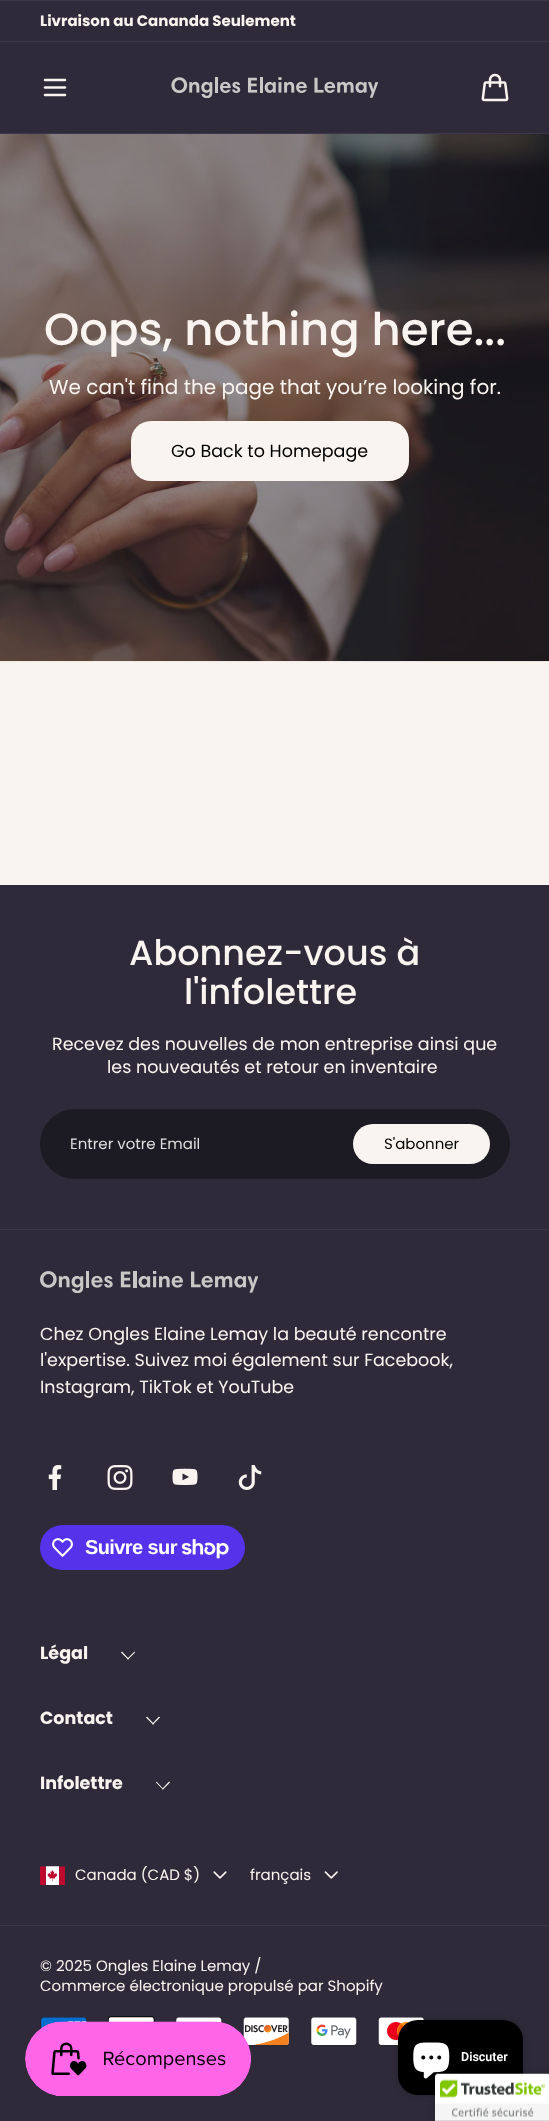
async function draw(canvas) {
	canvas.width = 549;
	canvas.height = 2121;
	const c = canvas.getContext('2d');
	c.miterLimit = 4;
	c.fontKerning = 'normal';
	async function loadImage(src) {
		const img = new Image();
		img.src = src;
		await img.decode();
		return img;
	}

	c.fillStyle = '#f9f4ef';
	c.fillRect(0, 0, 549, 2121);
	for (const [x, y, w, h, color] of [
		[0, 1, 549, 132, '#2e2a39'],
		[0, 0, 549, 1, '#3d384b'],
		[0, 41, 549, 1, '#3d384b'],
	]) {
		c.fillStyle = color;
		c.fillRect(x, y, w, h);
	}
	c.font = 'bold 15px Poppins';
	c.fillStyle = '#f9f4ef';
	c.fillText('Livraison au Cananda Seulement', 40, 26);
	c.fillStyle = '#3d384b';
	c.fillRect(0, 133, 549, 1);
	c.drawImage(await loadImage('img1.png'), 43, 78, 24, 19);
	c.drawImage(await loadImage('img2.png'), 171, 77, 207, 21);
	c.drawImage(await loadImage('img3.png'), 481, 73, 28, 29);
	c.drawImage(await loadImage('img4.png'), 0, 134, 549, 528);
	c.font = '500 45px Poppins';
	c.fillStyle = '#f9f4ef';
	c.fillText('Oops, nothing here...', 44, 345);
	c.font = '20px Poppins';
	c.fillText('We can\'t find the page that you’re looking for.', 49, 394);
	c.beginPath();
	c.roundRect(131, 421, 278, 60, 20);
	c.fill();
	c.font = '17.5px Poppins';
	c.fillStyle = '#000';
	c.fillText('Go Back to Homepage', 171, 457);
	c.fillStyle = '#2e2a39';
	c.fillRect(0, 885, 549, 344);
	c.font = '500 35px Poppins';
	c.fillStyle = '#f9f4ef';
	c.fillText('Abonnez-vous à', 129, 965);
	c.fillText('l\'infolettre', 184, 1004);
	c.font = '17.5px Poppins';
	c.fillText('Recevez des nouvelles de mon entreprise ainsi que', 52, 1050);
	c.fillText('les nouveautés et retour en inventaire', 107, 1073);
	c.fillStyle = '#1c1a23';
	c.beginPath();
	c.roundRect(40, 1109, 470, 70, 35);
	c.fill();
	c.font = '15px Poppins';
	c.fillStyle = '#dfdfdf';
	c.fillText('Entrer votre Email', 70, 1149);
	c.fillStyle = '#f9f4ef';
	c.beginPath();
	c.roundRect(353, 1124, 137, 40, 20);
	c.fill();
	c.fillStyle = '#000';
	c.fillText('S\'abonner', 384, 1149);
	c.fillStyle = '#2e2a39';
	c.fillRect(0, 1230, 549, 695);
	c.fillStyle = '#3d384b';
	c.fillRect(0, 1229, 549, 1);
	c.drawImage(await loadImage('img5.png'), 40, 1271, 218, 22);
	c.font = '17.5px Poppins';
	c.fillStyle = '#f9f4ef';
	for (const [text, x, y] of [
		['Chez Ongles Elaine Lemay la beauté rencontre', 40, 1340],
		['l\'expertise. Suivez moi également sur Facebook,', 40, 1366],
		['Instagram, TikTok et YouTube', 40, 1393],
	]) {
		c.fillText(text, x, y);
	}
	c.drawImage(await loadImage('img6.png'), 48, 1465, 14, 25);
	c.drawImage(await loadImage('img7.png'), 107, 1465, 26, 25);
	c.drawImage(await loadImage('img8.png'), 172, 1468, 26, 17);
	c.drawImage(await loadImage('img9.png'), 238, 1465, 24, 25);
	c.fillStyle = '#5433eb';
	c.beginPath();
	c.roundRect(40, 1525, 205, 45, 22.5);
	c.fill();
	c.drawImage(await loadImage('img10.png'), 52, 1538, 21, 19);
	c.letterSpacing = '-0.6px';
	c.font = 'bold 20px Liberation Sans';
	c.fillStyle = '#fff';
	c.fillText('Suivre sur', 85, 1554);
	c.drawImage(await loadImage('img11.png'), 181, 1539, 48, 20);
	c.letterSpacing = '0px';
	c.font = 'bold 17.5px Poppins';
	c.fillStyle = '#f9f4ef';
	c.fillText('Légal', 40, 1659);
	c.beginPath();
	c.moveTo(135, 1652.5);
	c.lineTo(128, 1659.5);
	c.lineTo(127, 1659);
	c.lineTo(134.5, 1651.5);
	c.closePath();
	c.fill();
	c.beginPath();
	c.moveTo(129, 1659);
	c.lineTo(128, 1659.5);
	c.lineTo(121, 1652.5);
	c.lineTo(122, 1651.5);
	c.closePath();
	c.fill();
	c.fillText('Contact', 40, 1724);
	c.beginPath();
	c.moveTo(160, 1717.5);
	c.lineTo(153, 1724.5);
	c.lineTo(152, 1724);
	c.lineTo(159, 1716.5);
	c.closePath();
	c.fill();
	c.beginPath();
	c.moveTo(154, 1724);
	c.lineTo(153, 1724.5);
	c.lineTo(146, 1717.5);
	c.lineTo(147, 1716.5);
	c.closePath();
	c.fill();
	c.fillText('Infolettre', 40, 1789);
	c.beginPath();
	c.moveTo(170, 1782.5);
	c.lineTo(163, 1789.5);
	c.lineTo(162, 1789);
	c.lineTo(169, 1781.5);
	c.closePath();
	c.fill();
	c.beginPath();
	c.moveTo(163.5, 1789);
	c.lineTo(163, 1789.5);
	c.lineTo(156, 1782.5);
	c.lineTo(156.5, 1781.5);
	c.closePath();
	c.fill();
	c.drawImage(await loadImage('img12.png'), 40, 1866, 25, 19);
	c.font = '15px Poppins';
	c.fillText('Canada (CAD $)', 75, 1880);
	c.drawImage(await loadImage('img13.png'), 213, 1871, 14, 8);
	c.fillText('français', 250, 1880);
	c.drawImage(await loadImage('img14.png'), 324, 1871, 14, 8);
	c.fillStyle = '#2e2a39';
	c.fillRect(0, 1926, 549, 195);
	c.fillStyle = '#3d384b';
	c.fillRect(0, 1925, 549, 1);
	c.fillStyle = '#f9f4ef';
	c.fillText('© 2025 Ongles Elaine Lemay /', 40, 1971);
	c.fillText('Commerce électronique propulsé par Shopify', 40, 1991);
	c.drawImage(await loadImage('img15.png'), 40, 2017, 47, 12);
	c.drawImage(await loadImage('img16.png'), 108, 2016, 47, 6);
	c.drawImage(await loadImage('img17.png'), 175, 2017, 47, 6);
	c.drawImage(await loadImage('img18.png'), 243, 2017, 47, 29);
	c.drawImage(await loadImage('img19.png'), 310, 2017, 47, 29);
	c.drawImage(await loadImage('img20.png'), 378, 2017, 47, 29);
	c.drawImage(await loadImage('img21.png'), 25, 2021, 226, 75);
	c.fillStyle = '#00000026';
	c.filter = 'blur(3px)';
	c.beginPath();
	c.roundRect(398, 2020, 125, 75, 20);
	c.fill();
	c.filter = 'none';
	c.fillStyle = '#000';
	c.beginPath();
	c.roundRect(398, 2020, 125, 75, 20);
	c.fill();
	c.drawImage(await loadImage('img22.png'), 413, 2042, 37, 37);
	c.font = '600 12.5px Roboto';
	c.fillStyle = '#fff';
	c.fillText('Discuter', 461, 2061);
	c.fillStyle = '#00000033';
	c.filter = 'blur(3px)';
	c.beginPath();
	c.roundRect(435, 2074, 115, 47, 2.5);
	c.fill();
	c.filter = 'none';
	c.drawImage(await loadImage('img23.png'), 435, 2073, 114, 48);
}

draw(document.querySelector('canvas'));
